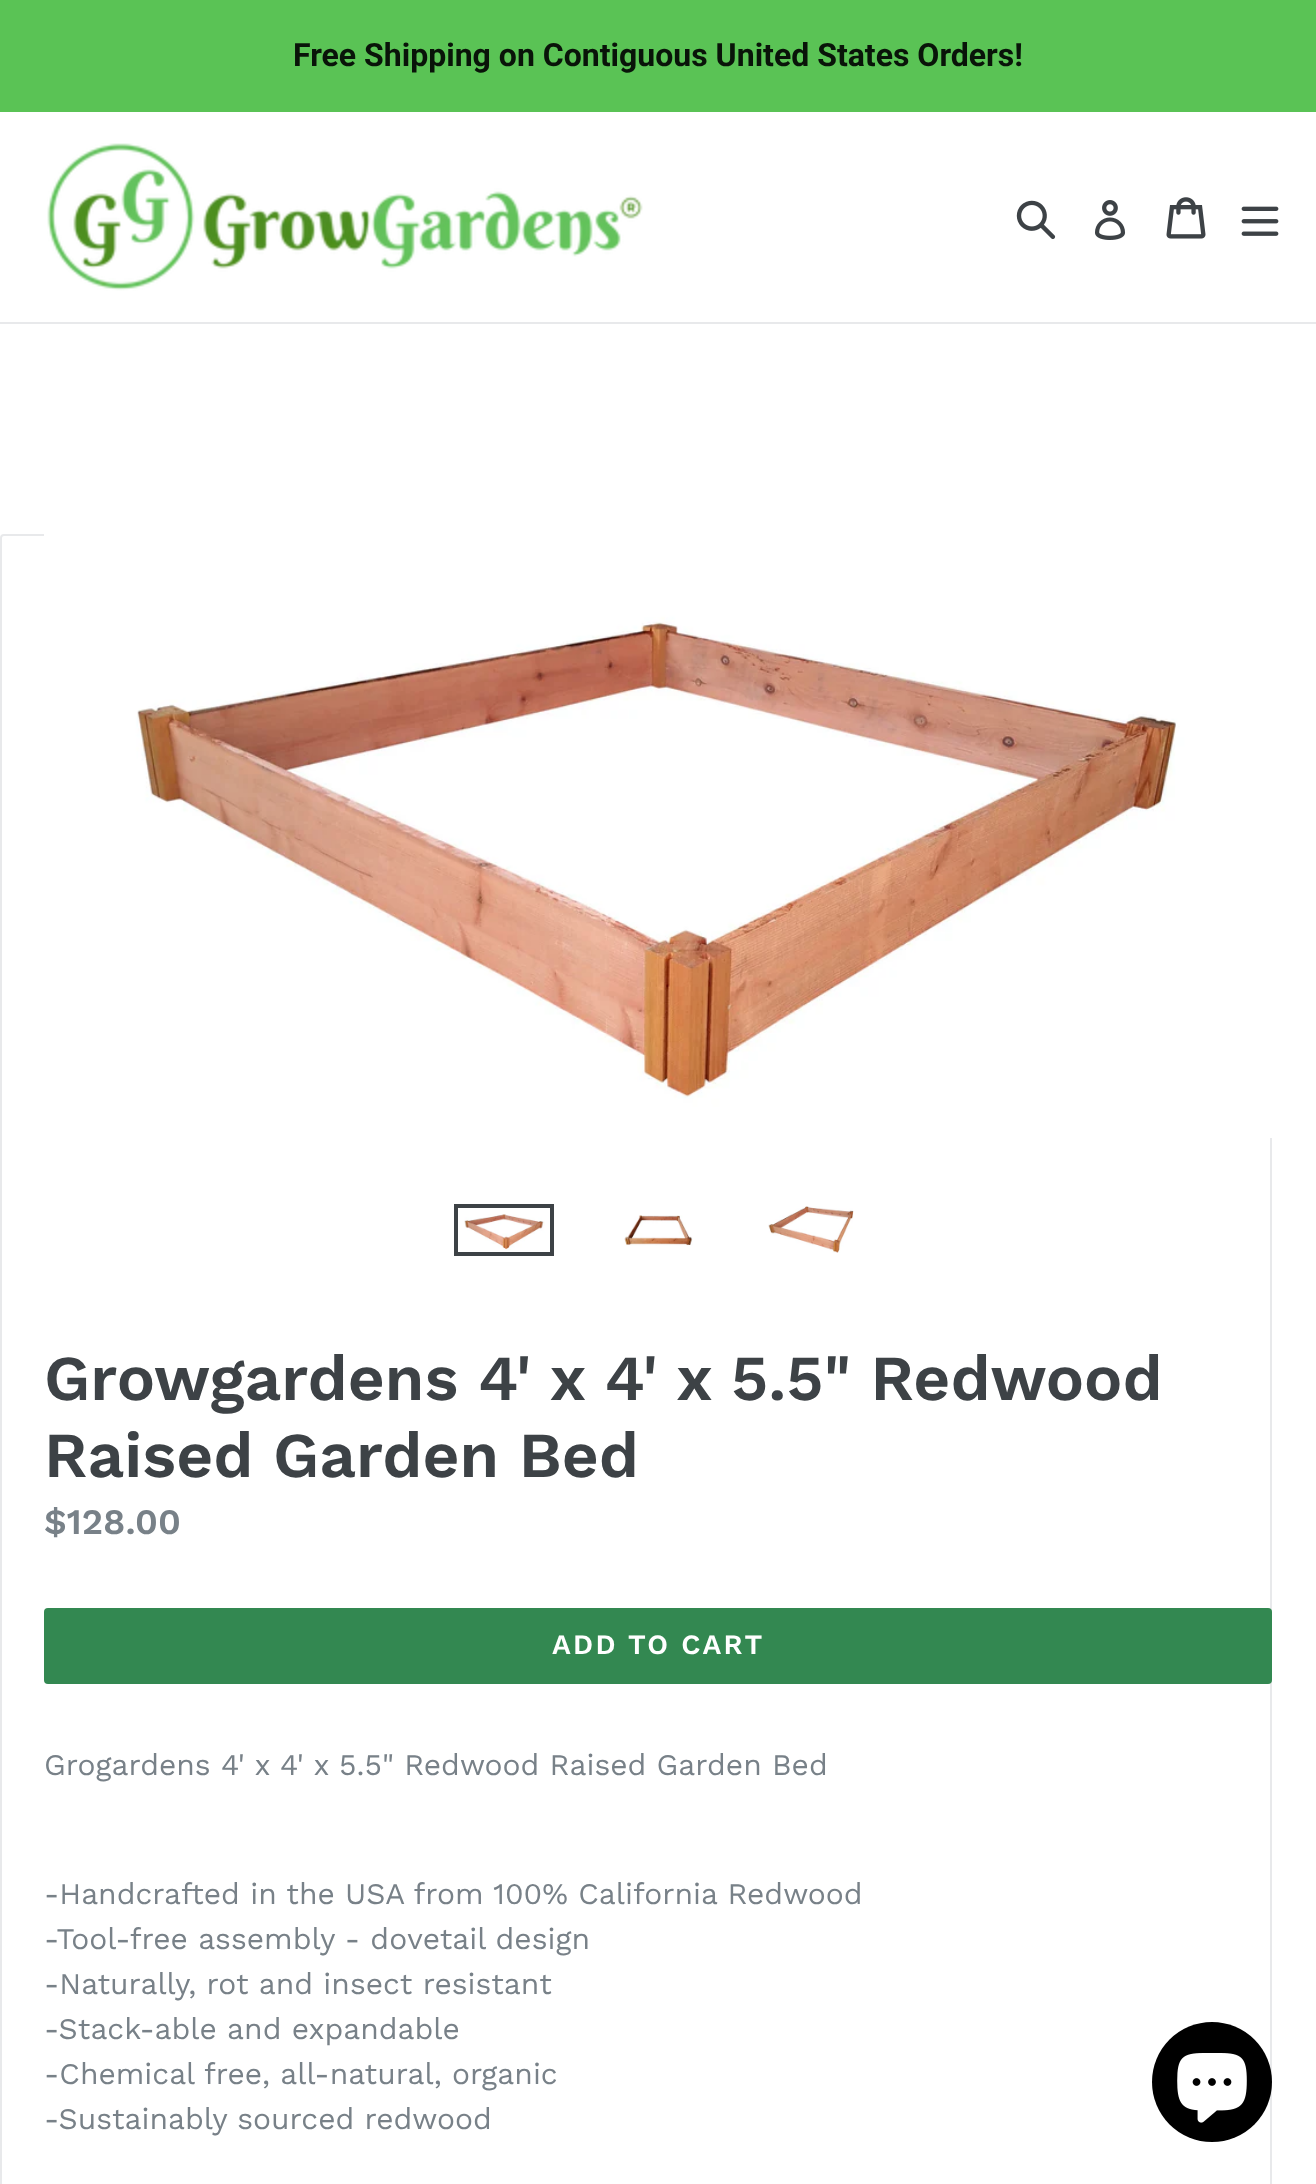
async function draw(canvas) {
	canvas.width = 1316;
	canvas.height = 2184;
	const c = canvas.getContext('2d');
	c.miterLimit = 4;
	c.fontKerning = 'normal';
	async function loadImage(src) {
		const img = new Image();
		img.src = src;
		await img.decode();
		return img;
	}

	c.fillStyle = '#fff';
	c.fillRect(0, 0, 1316, 2184);
	c.fillStyle = '#5ac355';
	c.fillRect(0, 0, 1316, 112);
	c.font = 'bold 32px Roboto';
	c.fillStyle = '#091409';
	c.fillText('Free Shipping on Contiguous United States Orders!', 293, 66);
	c.fillStyle = '#e8e9eb';
	c.fillRect(0, 322, 1316, 2);
	c.drawImage(await loadImage('img1.png'), 47, 143, 596, 148);
	c.drawImage(await loadImage('img2.png'), 1016, 200, 40, 40);
	c.drawImage(await loadImage('img3.png'), 1095, 200, 31, 40);
	c.drawImage(await loadImage('img4.png'), 1166, 197, 40, 42);
	c.drawImage(await loadImage('img5.png'), 1241, 206, 38, 30);
	c.beginPath();
	c.roundRect(1, 535, 1270, 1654, 3);
	c.strokeStyle = '#e8e9eb';
	c.lineWidth = 2;
	c.stroke();
	c.drawImage(await loadImage('img6.png'), 44, 534, 1228, 604);
	c.strokeStyle = '#3d4246';
	c.lineWidth = 4;
	c.strokeRect(456, 1206, 96, 48);
	c.drawImage(await loadImage('img7.png'), 464, 1214, 81, 36);
	c.drawImage(await loadImage('img8.png'), 624, 1215, 69, 31);
	c.drawImage(await loadImage('img9.png'), 768, 1206, 86, 47);
	c.font = '600 64px Work Sans';
	c.fillStyle = '#3d4246';
	c.fillText('Growgardens 4\' x 4\' x 5.5" Redwood', 44, 1400);
	c.fillText('Raised Garden Bed', 44, 1477);
	c.font = '600 36px Work Sans';
	c.fillStyle = '#788188';
	c.fillText('$128.00', 44, 1534);
	c.fillStyle = '#338851';
	c.beginPath();
	c.roundRect(44, 1608, 1228, 76, 4);
	c.fill();
	c.letterSpacing = '2.25px';
	c.font = '600 28px Work Sans';
	c.fillStyle = '#fff';
	c.fillText('ADD TO CART', 552, 1654);
	c.letterSpacing = '0px';
	c.font = '30px Work Sans';
	c.fillStyle = '#788188';
	for (const [text, x, y] of [
		['Grogardens 4\' x 4\' x 5.5" Redwood Raised Garden Bed', 44, 1775],
		['-Handcrafted in the USA from 100% California Redwood', 44, 1904],
		['-Tool-free assembly - dovetail design', 44, 1949],
		['-Naturally, rot and insect resistant', 44, 1994],
		['-Stack-able and expandable', 44, 2039],
		['-Chemical free, all-natural, organic', 44, 2084],
		['-Sustainably sourced redwood', 44, 2129],
	]) {
		c.fillText(text, x, y);
	}
	c.fillStyle = '#000';
	c.beginPath();
	c.arc(1212, 2082, 60, 0, 2 * Math.PI);
	c.fill();
	c.drawImage(await loadImage('img10.png'), 1177, 2053, 70, 70);
}

draw(document.querySelector('canvas'));
